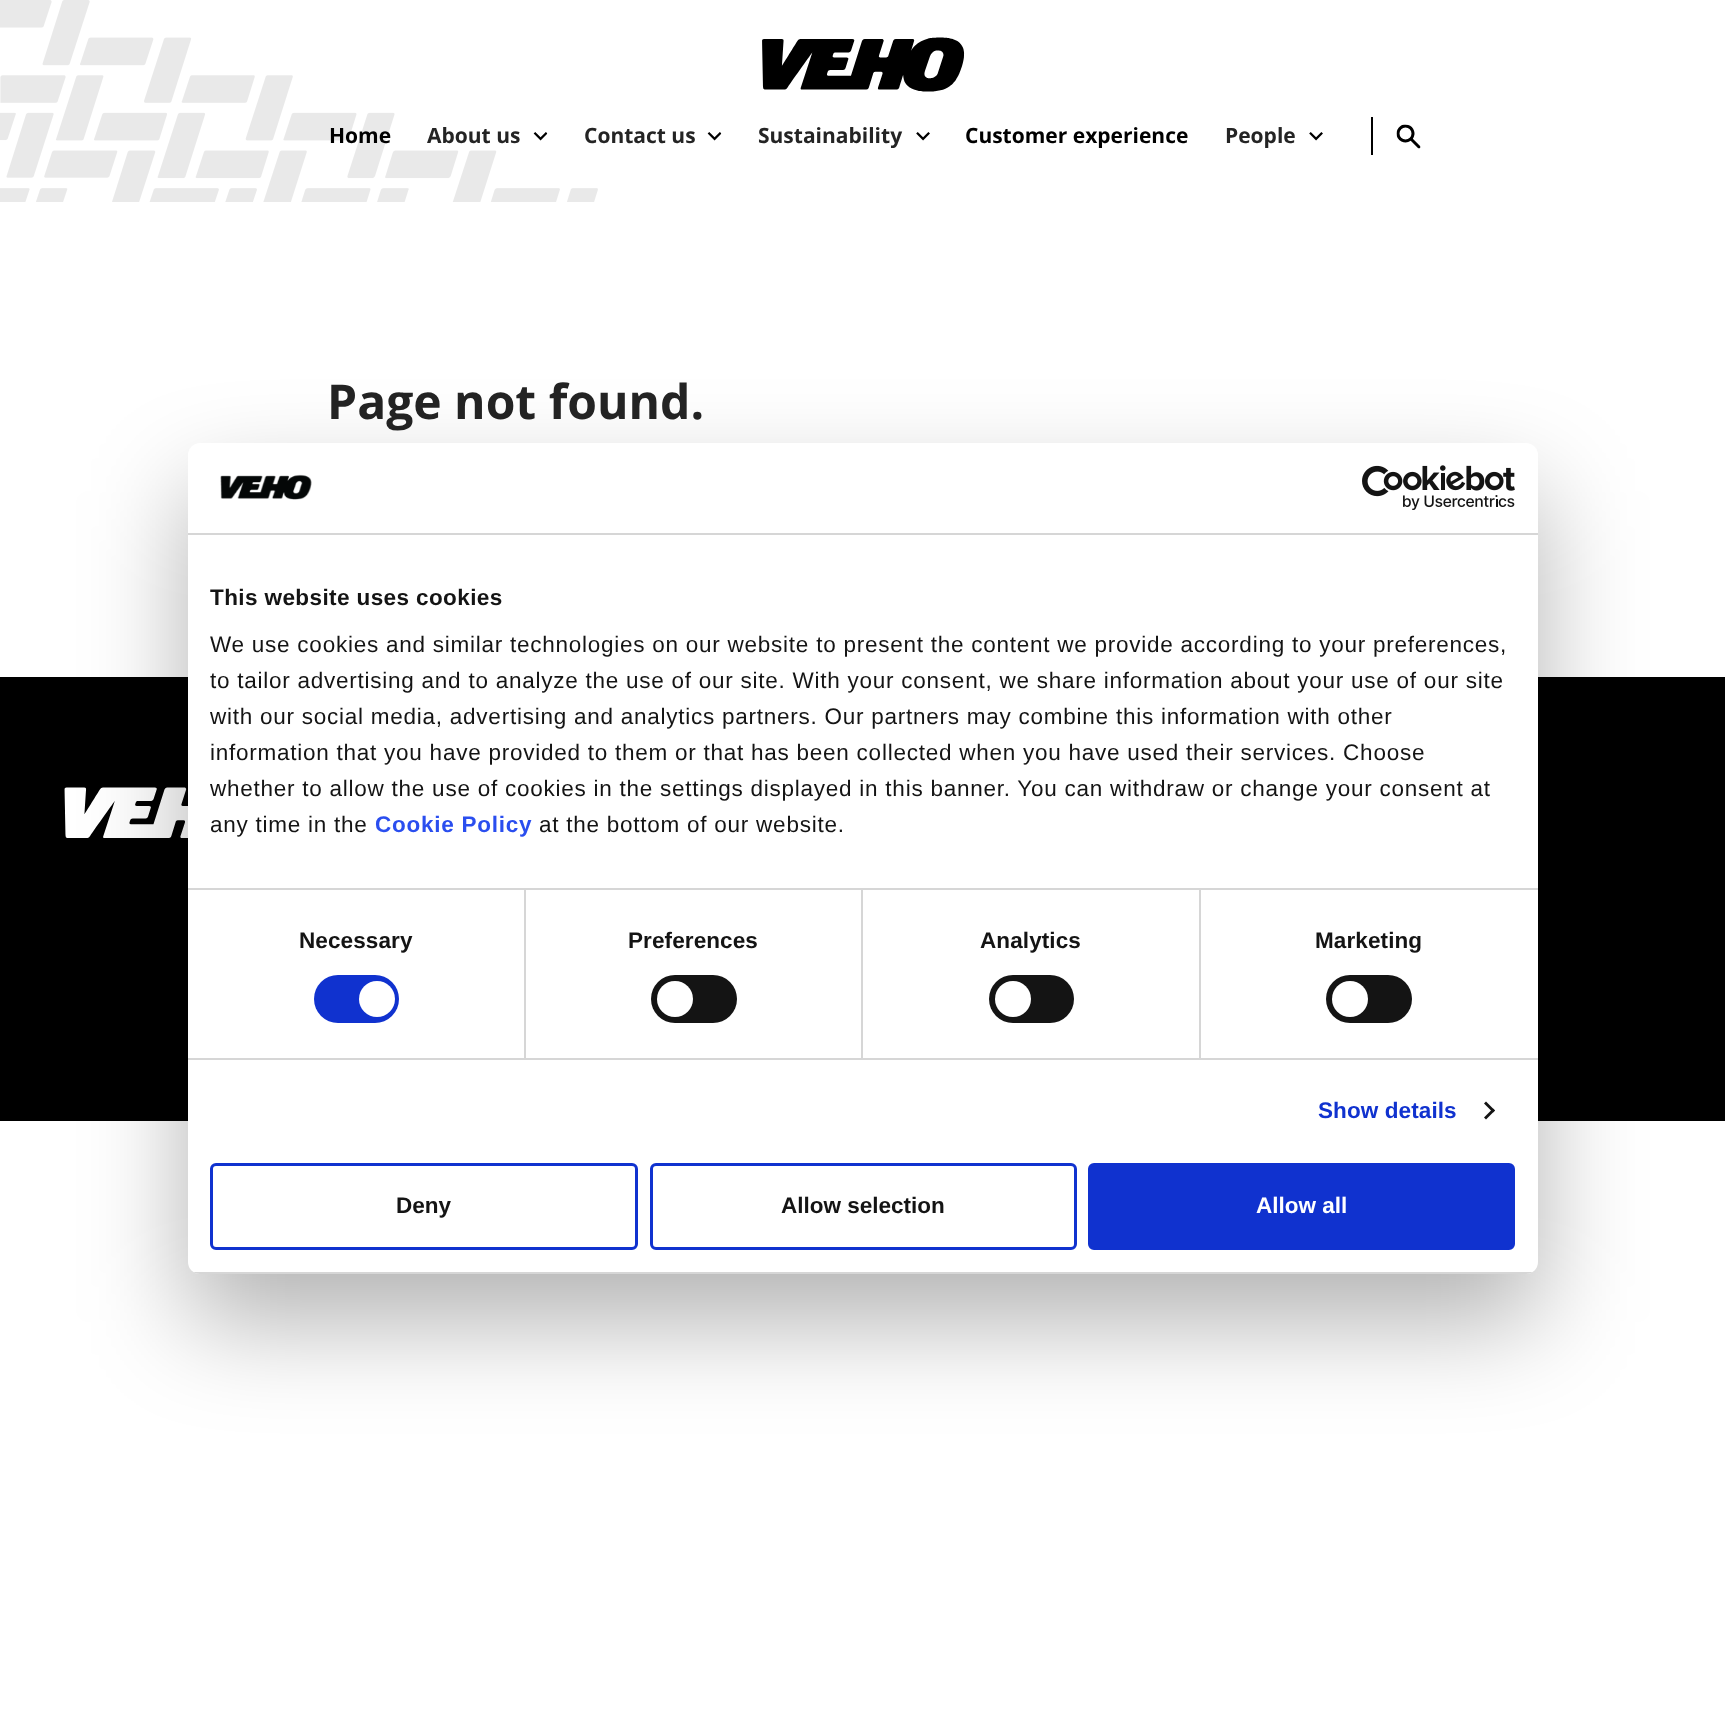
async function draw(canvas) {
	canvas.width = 1725;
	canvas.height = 1716;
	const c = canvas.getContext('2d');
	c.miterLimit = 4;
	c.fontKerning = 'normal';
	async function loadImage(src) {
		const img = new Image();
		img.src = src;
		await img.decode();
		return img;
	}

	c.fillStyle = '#fff';
	c.fillRect(0, 0, 1725, 1716);
	c.drawImage(await loadImage('img1.png'), 0, 0, 598, 202);
	c.drawImage(await loadImage('img2.png'), 762, 37, 203, 55);
	c.font = 'bold 21px Open Sans';
	c.fillStyle = '#000';
	c.fillText('Home', 329, 143);
	c.fillStyle = '#242424';
	c.fillText('About us', 427, 143);
	c.drawImage(await loadImage('img3.png'), 533, 132, 15, 9);
	c.fillText('Contact us', 584, 143);
	c.drawImage(await loadImage('img3.png'), 707, 132, 15, 9);
	c.fillText('Sustainability', 758, 143);
	c.drawImage(await loadImage('img4.png'), 916, 132, 14, 9);
	c.fillStyle = '#000';
	c.fillText('Customer experience', 965, 143);
	c.fillStyle = '#242424';
	c.fillText('People', 1225, 143);
	c.drawImage(await loadImage('img4.png'), 1309, 132, 14, 9);
	c.fillStyle = '#000';
	c.fillRect(1371, 117, 2, 38);
	c.drawImage(await loadImage('img5.png'), 1396, 124, 25, 25);
	c.font = 'bold 48px Open Sans';
	c.fillStyle = '#242424';
	c.fillText('Page not found.', 327, 419);
	c.fillStyle = '#000';
	c.fillRect(0, 677, 1725, 444);
	c.drawImage(await loadImage('img8.png'), 64, 787, 124, 51);
	c.fillStyle = '#0000004d';
	c.filter = 'blur(51px)';
	c.beginPath();
	c.roundRect(188, 491, 1350, 831, 12);
	c.fill();
	c.filter = 'none';
	c.fillStyle = '#fff';
	c.beginPath();
	c.roundRect(188, 443, 1350, 831, 12);
	c.fill();
	c.fillStyle = '#d6d6d6';
	c.fillRect(188, 533, 1350, 2);
	c.drawImage(await loadImage('img6.png'), 220, 474, 92, 26);
	c.drawImage(await loadImage('img7.png'), 1362, 465, 153, 45);
	c.fillRect(188, 888, 1350, 2);
	c.letterSpacing = '0.4px';
	c.font = 'bold 22.5px Liberation Sans';
	c.fillStyle = '#141414';
	c.fillText('This website uses cookies', 210, 605);
	c.letterSpacing = '0.75px';
	c.font = '22.5px Liberation Sans';
	for (const [text, x, y] of [
		['We use cookies and similar technologies on our website to present the content we provide according to your preferences,', 210, 652],
		['to tailor advertising and to analyze the use of our site. With your consent, we share information about your use of our site', 210, 688],
		['with our social media, advertising and analytics partners. Our partners may combine this information with other', 210, 724],
		['information that you have provided to them or that has been collected when you have used their services. Choose', 210, 760],
		['whether to allow the use of cookies in the settings displayed in this banner. You can withdraw or change your consent at', 210, 796],
		['any time in the', 210, 832],
	]) {
		c.fillText(text, x, y);
	}
	c.font = 'bold 22.5px Liberation Sans';
	c.fillStyle = '#2a4eef';
	c.fillText('Cookie Policy', 375, 832);
	c.font = '22.5px Liberation Sans';
	c.fillStyle = '#141414';
	c.fillText('at the bottom of our website.', 539, 832);
	c.fillStyle = '#d6d6d6';
	c.fillRect(188, 1058, 1350, 2);
	c.fillRect(524, 890, 2, 168);
	c.letterSpacing = '0.1px';
	c.font = 'bold 22.5px Liberation Sans';
	c.fillStyle = '#141414';
	c.fillText('Necessary', 299, 948);
	c.fillStyle = '#1032cf';
	c.beginPath();
	c.roundRect(314, 975, 85, 48, 24);
	c.fill();
	c.fillStyle = '#fff';
	c.beginPath();
	c.arc(377, 999, 18, 0, 2 * Math.PI);
	c.fill();
	c.fillStyle = '#d6d6d6';
	c.fillRect(861, 890, 2, 168);
	c.fillStyle = '#141414';
	c.fillText('Preferences', 628, 948);
	c.beginPath();
	c.roundRect(651, 975, 86, 48, 24);
	c.fill();
	c.fillStyle = '#fff';
	c.beginPath();
	c.arc(675, 999, 18, 0, 2 * Math.PI);
	c.fill();
	c.fillStyle = '#d6d6d6';
	c.fillRect(1199, 890, 2, 168);
	c.fillStyle = '#141414';
	c.fillText('Analytics', 980, 948);
	c.beginPath();
	c.roundRect(989, 975, 85, 48, 24);
	c.fill();
	c.fillStyle = '#fff';
	c.beginPath();
	c.arc(1013, 999, 18, 0, 2 * Math.PI);
	c.fill();
	c.fillStyle = '#141414';
	c.fillText('Marketing', 1315, 948);
	c.beginPath();
	c.roundRect(1326, 975, 86, 48, 24);
	c.fill();
	c.fillStyle = '#fff';
	c.beginPath();
	c.arc(1350, 999, 18, 0, 2 * Math.PI);
	c.fill();
	c.fillStyle = '#1032cf';
	c.fillText('Show details', 1318, 1118);
	c.fillStyle = '#141414';
	c.beginPath();
	c.moveTo(1486, 1101.5);
	c.lineTo(1495, 1110.5);
	c.lineTo(1493, 1112.5);
	c.lineTo(1484, 1103.5);
	c.closePath();
	c.fill();
	c.beginPath();
	c.moveTo(1493, 1108.5);
	c.lineTo(1495, 1110.5);
	c.lineTo(1486, 1119.5);
	c.lineTo(1484, 1117.5);
	c.closePath();
	c.fill();
	c.save();
	c.beginPath();
	c.roundRect(188, 443, 1350, 831, 12);
	c.clip();
	c.fillStyle = '#d6d6d6';
	c.fillRect(188, 1272, 1350, 2);
	c.restore();
	c.beginPath();
	c.roundRect(211.5, 1164.5, 425, 84, 4.5);
	c.strokeStyle = '#1032cf';
	c.lineWidth = 3;
	c.stroke();
	c.letterSpacing = '0px';
	c.fillText('Deny', 396, 1213);
	c.beginPath();
	c.roundRect(651.5, 1164.5, 424, 84, 4.5);
	c.stroke();
	c.fillText('Allow selection', 781, 1213);
	c.fillStyle = '#1032cf';
	c.beginPath();
	c.roundRect(1089.5, 1164.5, 424, 84, 4.5);
	c.fill();
	c.stroke();
	c.fillStyle = '#fff';
	c.fillText('Allow all', 1256, 1213);
}

draw(document.querySelector('canvas'));
